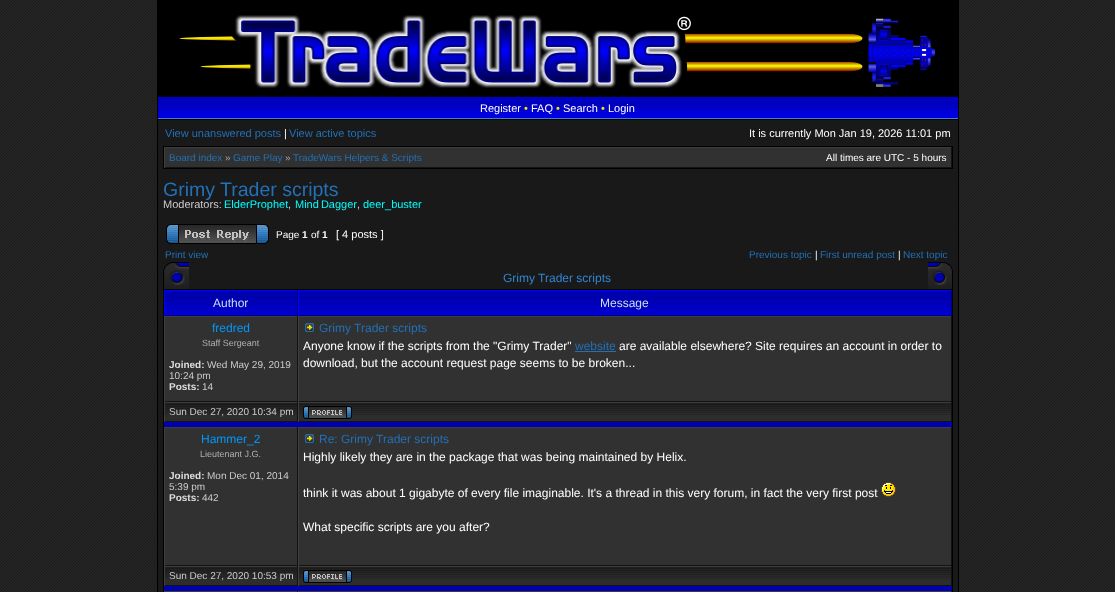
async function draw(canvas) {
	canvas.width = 1115;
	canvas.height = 592;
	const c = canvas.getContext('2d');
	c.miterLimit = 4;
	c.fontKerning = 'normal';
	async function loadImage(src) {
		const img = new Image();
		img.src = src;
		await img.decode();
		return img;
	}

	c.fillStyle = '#fff';
	c.fillRect(0, 0, 1115, 592);
	c.drawImage(await loadImage('img1.png'), 0, 0, 1115, 592);
	c.fillStyle = '#000';
	c.fillRect(958, 0, 1, 592);
	c.fillRect(157, 0, 1, 592);
	c.drawImage(await loadImage('img2.png'), 158, 0, 800, 96);
	c.drawImage(await loadImage('img3.png'), 158, 15, 533, 73);
	c.drawImage(await loadImage('img4.png'), 849, 18, 109, 69);
	c.fillStyle = '#3b83c6';
	c.fillRect(158, 118, 800, 1);
	c.drawImage(await loadImage('img5.png'), 158, 97, 800, 21);
	c.fillStyle = '#000';
	c.fillRect(158, 96, 800, 1);
	c.fillRect(158, 119, 800, 1);
	c.font = '11px Liberation Sans';
	c.fillStyle = '#fff';
	c.fillText('Register', 480, 112);
	c.fillStyle = '#f0e80a';
	c.fillText('•', 524, 112);
	c.fillStyle = '#fff';
	c.fillText('FAQ', 531, 112);
	c.fillStyle = '#f0e80a';
	c.fillText('•', 556, 112);
	c.fillStyle = '#fff';
	c.fillText('Search', 563, 112);
	c.fillStyle = '#f0e80a';
	c.fillText('•', 601, 112);
	c.fillStyle = '#fff';
	c.fillText('Login', 608, 112);
	c.fillStyle = '#191919';
	c.fillRect(158, 120, 800, 472);
	c.fillStyle = '#2370b6';
	c.fillText('View unanswered posts', 165, 137);
	c.fillStyle = '#fff';
	c.fillText('|', 284, 137);
	c.fillStyle = '#2370b6';
	c.fillText('View active topics', 289, 137);
	c.fillStyle = '#fff';
	c.fillText('It is currently Mon Jan 19, 2026 11:01 pm', 749, 137);
	c.fillStyle = '#313131';
	c.fillRect(165, 148, 786, 19);
	c.strokeStyle = '#000';
	c.strokeRect(163.5, 146.5, 789, 22);
	for (const [x, y, w, h, color] of [
		[164, 147, 788, 1, '#3c3c3c'],
		[951, 147, 1, 21, '#121212'],
		[164, 167, 788, 1, '#131313'],
		[164, 147, 1, 21, '#404040'],
	]) {
		c.fillStyle = color;
		c.fillRect(x, y, w, h);
	}
	c.font = '10px Liberation Sans';
	c.fillStyle = '#2370b6';
	c.fillText('Board index', 169, 161);
	c.fillStyle = '#aaa';
	c.fillText('»', 225, 161);
	c.fillStyle = '#2370b6';
	c.fillText('Game Play', 233, 161);
	c.fillStyle = '#aaa';
	c.fillText('»', 285, 161);
	c.fillStyle = '#2370b6';
	c.fillText('TradeWars Helpers & Scripts', 293, 161);
	c.fillStyle = '#fff';
	c.fillText('All times are UTC - 5 hours', 826, 161);
	c.font = '19.5px Liberation Sans';
	c.fillStyle = '#2370b6';
	c.fillText('Grimy Trader scripts', 163, 196);
	c.font = '11px Liberation Sans';
	c.fillStyle = '#ccc';
	c.fillText('Moderators:', 163, 208);
	c.fillStyle = '#0ff';
	c.fillText('ElderProphet', 224, 208);
	c.fillStyle = '#ccc';
	c.fillText(',', 288, 208);
	c.wordSpacing = '-1px';
	c.fillStyle = '#0ff';
	c.fillText('Mind Dagger', 295, 208);
	c.wordSpacing = '0px';
	c.fillStyle = '#ccc';
	c.fillText(',', 357, 208);
	c.fillStyle = '#0ff';
	c.fillText('deer_buster', 363, 208);
	c.drawImage(await loadImage('img6.png'), 166, 224, 103, 20);
	c.font = '10px Liberation Sans';
	c.fillStyle = '#fff';
	c.fillText('Page', 276, 238);
	c.font = 'bold 10px Liberation Sans';
	c.fillText('1', 302, 238);
	c.font = '10px Liberation Sans';
	c.fillText('of', 311, 238);
	c.font = 'bold 10px Liberation Sans';
	c.fillText('1', 322, 238);
	c.font = '11px Liberation Sans';
	c.fillText('[ 4 posts ]', 336, 238);
	c.font = '10px Liberation Sans';
	c.fillStyle = '#2370b6';
	c.fillText('Print view', 165, 258);
	c.fillText('Previous topic', 749, 258);
	c.fillStyle = '#fff';
	c.fillText('|', 815, 258);
	c.fillStyle = '#2370b6';
	c.fillText('First unread post', 820, 258);
	c.fillStyle = '#fff';
	c.fillText('|', 898, 258);
	c.fillStyle = '#2370b6';
	c.fillText('Next topic', 903, 258);
	c.drawImage(await loadImage('img7.png'), 163, 262, 26, 27);
	c.drawImage(await loadImage('img8.png'), 928, 262, 25, 27);
	c.font = '12px Liberation Sans';
	c.fillStyle = '#3285d0';
	c.fillText('Grimy Trader scripts', 503, 282);
	c.strokeRect(163.5, 289.5, 789, 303);
	c.drawImage(await loadImage('img9.png'), 165, 291, 132, 24);
	for (const [x, y, w, h, color] of [
		[164, 290, 788, 1, '#00f'],
		[297, 290, 1, 26, '#000080'],
		[164, 315, 134, 1, '#000080'],
		[164, 290, 1, 26, '#00f'],
	]) {
		c.fillStyle = color;
		c.fillRect(x, y, w, h);
	}
	c.fillStyle = '#ccdff0';
	c.fillText('Author', 213, 307);
	c.drawImage(await loadImage('img10.png'), 299, 291, 652, 24);
	for (const [x, y, w, h, color] of [
		[951, 290, 1, 26, '#000080'],
		[298, 315, 654, 1, '#000080'],
		[298, 290, 1, 26, '#00f'],
	]) {
		c.fillStyle = color;
		c.fillRect(x, y, w, h);
	}
	c.fillStyle = '#ccdff0';
	c.fillText('Message', 600, 307);
	for (const [x, y, w, h, color] of [
		[165, 317, 132, 84, '#313131'],
		[164, 316, 788, 1, '#3c3c3c'],
		[297, 316, 1, 86, '#121212'],
		[164, 401, 134, 1, '#131313'],
		[164, 316, 1, 86, '#404040'],
	]) {
		c.fillStyle = color;
		c.fillRect(x, y, w, h);
	}
	c.fillStyle = '#09f';
	c.fillText('fredred', 212, 332);
	c.font = '9px Liberation Sans';
	c.fillStyle = '#b0b0b0';
	c.fillText('Staff Sergeant', 202, 346);
	c.font = 'bold 10px Liberation Sans';
	c.fillStyle = '#ddd';
	c.fillText('Joined:', 169, 368);
	c.font = '10px Liberation Sans';
	c.fillStyle = '#ccc';
	c.fillText('Wed May 29, 2019', 207, 368);
	c.fillText('10:24 pm', 169, 379);
	c.font = 'bold 10px Liberation Sans';
	c.fillStyle = '#ddd';
	c.fillText('Posts:', 169, 390);
	c.font = '10px Liberation Sans';
	c.fillStyle = '#ccc';
	c.fillText('14', 202, 390);
	for (const [x, y, w, h, color] of [
		[299, 317, 652, 84, '#313131'],
		[951, 316, 1, 86, '#121212'],
		[298, 401, 654, 1, '#131313'],
		[298, 316, 1, 86, '#404040'],
	]) {
		c.fillStyle = color;
		c.fillRect(x, y, w, h);
	}
	c.drawImage(await loadImage('img11.png'), 305, 323, 9, 9);
	c.font = '12px Liberation Sans';
	c.fillStyle = '#2370b6';
	c.fillText('Grimy Trader scripts', 319, 332);
	c.fillStyle = '#fff';
	c.fillText('Anyone know if the scripts from the "Grimy Trader"', 303, 350);
	c.fillStyle = '#2370b6';
	c.fillText('website', 575, 350);
	c.fillRect(575, 351, 41, 1);
	c.fillStyle = '#fff';
	c.fillText('are available elsewhere? Site requires an account in order to', 619, 350);
	c.fillText('download, but the account request page seems to be broken...', 303, 367);
	c.fillStyle = '#2d2d2d';
	c.fillRect(165, 415, 132, 6);
	c.drawImage(await loadImage('img12.png'), 165, 403, 132, 12);
	for (const [x, y, w, h, color] of [
		[164, 402, 788, 1, '#3c3c3c'],
		[297, 402, 1, 20, '#121212'],
		[164, 421, 134, 1, '#131313'],
		[164, 402, 1, 20, '#404040'],
	]) {
		c.fillStyle = color;
		c.fillRect(x, y, w, h);
	}
	c.font = '10px Liberation Sans';
	c.fillStyle = '#ccc';
	c.fillText('Sun Dec 27, 2020 10:34 pm', 169, 415);
	c.fillStyle = '#2d2d2d';
	c.fillRect(299, 415, 652, 6);
	c.drawImage(await loadImage('img13.png'), 299, 403, 652, 12);
	for (const [x, y, w, h, color] of [
		[951, 402, 1, 20, '#121212'],
		[298, 421, 654, 1, '#131313'],
		[298, 402, 1, 20, '#404040'],
	]) {
		c.fillStyle = color;
		c.fillRect(x, y, w, h);
	}
	c.drawImage(await loadImage('img14.png'), 303, 406, 49, 13);
	c.drawImage(await loadImage('img15.png'), 164, 422, 788, 5);
	for (const [x, y, w, h, color] of [
		[165, 428, 132, 137, '#313131'],
		[164, 427, 788, 1, '#3c3c3c'],
		[297, 427, 1, 139, '#121212'],
		[164, 565, 134, 1, '#131313'],
		[164, 427, 1, 139, '#404040'],
	]) {
		c.fillStyle = color;
		c.fillRect(x, y, w, h);
	}
	c.font = '12px Liberation Sans';
	c.fillStyle = '#09f';
	c.fillText('Hammer_2', 201, 443);
	c.font = '9px Liberation Sans';
	c.fillStyle = '#b0b0b0';
	c.fillText('Lieutenant J.G.', 200, 457);
	c.font = 'bold 10px Liberation Sans';
	c.fillStyle = '#ddd';
	c.fillText('Joined:', 169, 479);
	c.font = '10px Liberation Sans';
	c.fillStyle = '#ccc';
	c.fillText('Mon Dec 01, 2014', 207, 479);
	c.fillText('5:39 pm', 169, 490);
	c.font = 'bold 10px Liberation Sans';
	c.fillStyle = '#ddd';
	c.fillText('Posts:', 169, 501);
	c.font = '10px Liberation Sans';
	c.fillStyle = '#ccc';
	c.fillText('442', 202, 501);
	for (const [x, y, w, h, color] of [
		[299, 428, 652, 137, '#313131'],
		[951, 427, 1, 139, '#121212'],
		[298, 565, 654, 1, '#131313'],
		[298, 427, 1, 139, '#404040'],
	]) {
		c.fillStyle = color;
		c.fillRect(x, y, w, h);
	}
	c.drawImage(await loadImage('img11.png'), 305, 434, 9, 9);
	c.font = '12px Liberation Sans';
	c.fillStyle = '#2370b6';
	c.fillText('Re: Grimy Trader scripts', 319, 443);
	c.fillStyle = '#fff';
	c.fillText('Highly likely they are in the package that was being maintained by Helix.', 303, 461);
	c.fillText('think it was about 1 gigabyte of every file imaginable. It\'s a thread in this very forum, in fact the very first post', 303, 497);
	c.drawImage(await loadImage('img16.png'), 881, 482, 15, 15);
	c.fillText('What specific scripts are you after?', 303, 531);
	c.fillStyle = '#2d2d2d';
	c.fillRect(165, 579, 132, 6);
	c.drawImage(await loadImage('img12.png'), 165, 567, 132, 12);
	for (const [x, y, w, h, color] of [
		[164, 566, 788, 1, '#3c3c3c'],
		[297, 566, 1, 20, '#121212'],
		[164, 585, 134, 1, '#131313'],
		[164, 566, 1, 20, '#404040'],
	]) {
		c.fillStyle = color;
		c.fillRect(x, y, w, h);
	}
	c.font = '10px Liberation Sans';
	c.fillStyle = '#ccc';
	c.fillText('Sun Dec 27, 2020 10:53 pm', 169, 579);
	c.fillStyle = '#2d2d2d';
	c.fillRect(299, 579, 652, 6);
	c.drawImage(await loadImage('img13.png'), 299, 567, 652, 12);
	for (const [x, y, w, h, color] of [
		[951, 566, 1, 20, '#121212'],
		[298, 585, 654, 1, '#131313'],
		[298, 566, 1, 20, '#404040'],
	]) {
		c.fillStyle = color;
		c.fillRect(x, y, w, h);
	}
	c.drawImage(await loadImage('img14.png'), 303, 570, 49, 13);
	c.drawImage(await loadImage('img15.png'), 164, 586, 788, 5);
	for (const [x, y, w, h, color] of [
		[164, 591, 788, 1, '#3c3c3c'],
		[297, 591, 1, 1, '#121212'],
		[164, 591, 1, 1, '#404040'],
		[951, 591, 1, 1, '#121212'],
		[298, 591, 1, 1, '#404040'],
	]) {
		c.fillStyle = color;
		c.fillRect(x, y, w, h);
	}
}

draw(document.querySelector('canvas'));
